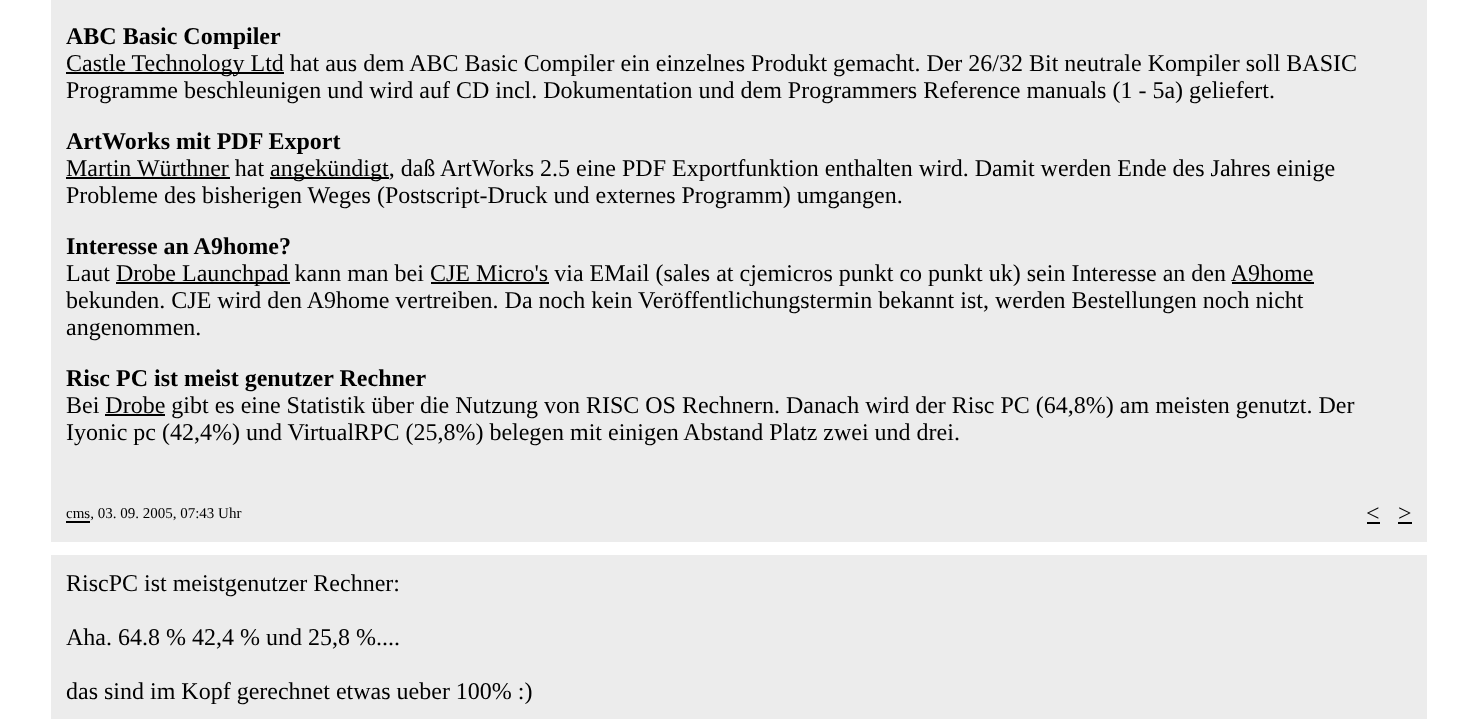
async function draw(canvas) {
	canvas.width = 1477;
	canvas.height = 719;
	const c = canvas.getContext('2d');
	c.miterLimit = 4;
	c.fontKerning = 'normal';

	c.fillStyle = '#fff';
	c.fillRect(0, 0, 1477, 719);
	c.fillStyle = '#ececec';
	c.fillRect(51, 0, 1376, 542);
	c.font = 'bold 24px Liberation Serif';
	c.fillStyle = '#000';
	c.fillText('ABC Basic Compiler', 66, 44);
	c.fillRect(66, 72, 218, 2);
	c.font = '24px Liberation Serif';
	c.fillText('Castle Technology Ltd hat aus dem ABC Basic Compiler ein einzelnes Produkt gemacht. Der 26/32 Bit neutrale Kompiler soll BASIC', 66, 71);
	c.fillText('Programme beschleunigen und wird auf CD incl. Dokumentation und dem Programmers Reference manuals (1 - 5a) geliefert.', 66, 98);
	c.font = 'bold 24px Liberation Serif';
	c.fillText('ArtWorks mit PDF Export', 66, 149);
	c.font = '24px Liberation Serif';
	c.fillText('Martin Würthner hat', 66, 176);
	c.fillRect(66, 177, 164, 2);
	c.fillRect(270, 177, 119, 2);
	c.fillText('angekündigt, daß ArtWorks 2.5 eine PDF Exportfunktion enthalten wird. Damit werden Ende des Jahres einige', 270, 176);
	c.fillText('Probleme des bisherigen Weges (Postscript-Druck und externes Programm) umgangen.', 66, 203);
	c.font = 'bold 24px Liberation Serif';
	c.fillText('Interesse an A9home?', 66, 254);
	c.font = '24px Liberation Serif';
	c.fillText('Laut', 66, 281);
	c.fillRect(116, 282, 174, 2);
	c.fillText('Drobe Launchpad kann man bei CJE Micro\'s via EMail (sales at cjemicros punkt co punkt uk) sein Interesse an den A9home', 116, 281);
	c.fillRect(431, 282, 118, 2);
	c.fillRect(1232, 282, 82, 2);
	c.fillText('bekunden. CJE wird den A9home vertreiben. Da noch kein Veröffentlichungstermin bekannt ist, werden Bestellungen noch nicht', 66, 308);
	c.fillText('angenommen.', 66, 335);
	c.font = 'bold 24px Liberation Serif';
	c.fillText('Risc PC ist meist genutzer Rechner', 66, 386);
	c.font = '24px Liberation Serif';
	c.fillText('Bei Drobe gibt es eine Statistik über die Nutzung von RISC OS Rechnern. Danach wird der Risc PC (64,8%) am meisten genutzt. Der', 66, 413);
	c.fillRect(105, 414, 60, 2);
	c.fillText('Iyonic pc (42,4%) und VirtualRPC (25,8%) belegen mit einigen Abstand Platz zwei und drei.', 66, 440);
	c.font = '15px Liberation Serif';
	c.fillText('cms, 03. 09. 2005, 07:43 Uhr', 66, 518);
	c.fillRect(66, 521, 24, 2);
	c.font = '24px Liberation Serif';
	c.fillText('<', 1366, 521);
	c.fillRect(1367, 522, 13, 2);
	c.fillText('>', 1398, 521);
	c.fillRect(1398, 522, 14, 2);
	c.fillStyle = '#ececec';
	c.fillRect(51, 555, 1376, 164);
	c.fillStyle = '#000';
	for (const [text, x, y] of [
		['RiscPC ist meistgenutzer Rechner:', 66, 591],
		['Aha. 64.8 % 42,4 % und 25,8 %....', 66, 645],
		['das sind im Kopf gerechnet etwas ueber 100% :)', 66, 699],
	]) {
		c.fillText(text, x, y);
	}
}

draw(document.querySelector('canvas'));
